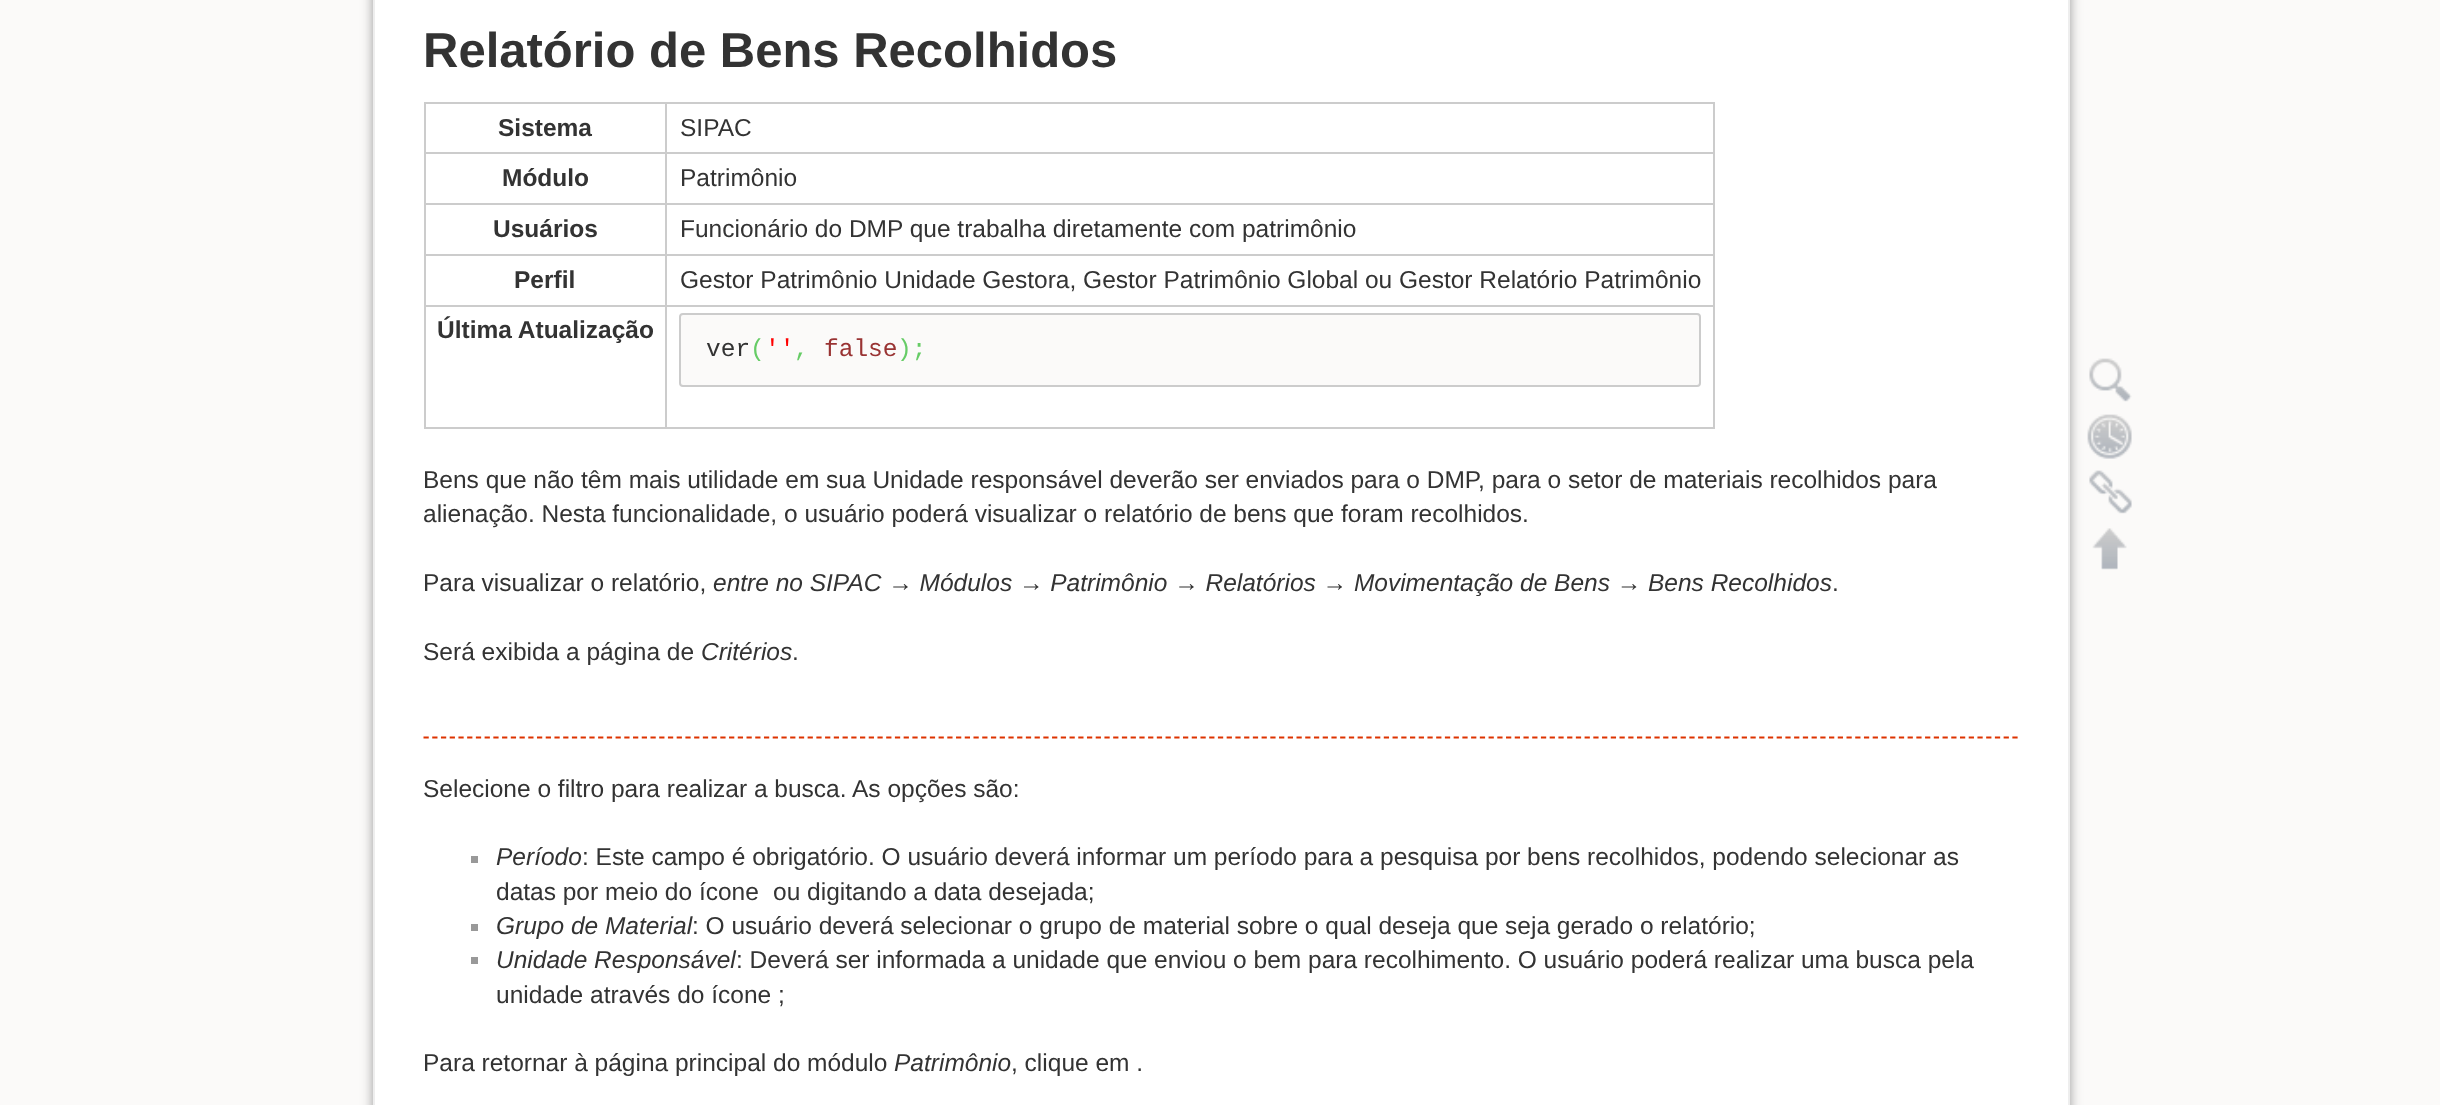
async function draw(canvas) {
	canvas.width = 2440;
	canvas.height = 1105;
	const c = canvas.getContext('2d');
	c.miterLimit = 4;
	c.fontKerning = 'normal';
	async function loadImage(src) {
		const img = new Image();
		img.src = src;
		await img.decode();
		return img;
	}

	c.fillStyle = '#fbfaf9';
	c.fillRect(0, 0, 2440, 1105);
	c.fillStyle = '#999';
	c.filter = 'blur(6px)';
	c.beginPath();
	c.roundRect(373, -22, 1697, 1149, 4);
	c.fill();
	c.filter = 'none';
	c.fillStyle = '#fff';
	c.beginPath();
	c.rect(374, -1, 1695, 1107);
	c.fill();
	c.strokeStyle = '#eee';
	c.lineWidth = 2;
	c.stroke();
	c.font = 'bold 49px Liberation Sans';
	c.fillStyle = '#333';
	c.fillText('Relatório de Bens Recolhidos', 423, 67);
	for (const [x, y, w, h, color] of [
		[424, 102, 1291, 2, '#ccc'],
		[1713, 102, 2, 327, '#ccc'],
		[424, 427, 1291, 2, '#ccc'],
		[424, 102, 2, 327, '#ccc'],
	]) {
		c.fillStyle = color;
		c.fillRect(x, y, w, h);
	}
	c.font = 'bold 24.5px Liberation Sans';
	c.fillStyle = '#333';
	c.fillText('Sistema', 498, 136);
	for (const [x, y, w, h, color] of [
		[665, 152, 1050, 2, '#ccc'],
		[665, 203, 1050, 2, '#ccc'],
		[665, 254, 1050, 2, '#ccc'],
		[665, 305, 1050, 2, '#ccc'],
		[665, 305, 2, 124, '#ccc'],
		[424, 305, 243, 2, '#ccc'],
		[665, 254, 2, 52, '#ccc'],
		[424, 254, 243, 2, '#ccc'],
		[665, 203, 2, 53, '#ccc'],
		[424, 203, 243, 2, '#ccc'],
		[665, 152, 2, 53, '#ccc'],
		[424, 152, 243, 2, '#ccc'],
		[665, 102, 2, 52, '#ccc'],
	]) {
		c.fillStyle = color;
		c.fillRect(x, y, w, h);
	}
	c.font = '24.5px Liberation Sans';
	c.fillStyle = '#333';
	c.fillText('SIPAC', 680, 136);
	c.font = 'bold 24.5px Liberation Sans';
	c.fillText('Módulo', 502, 186);
	c.font = '24.5px Liberation Sans';
	c.fillText('Patrimônio', 680, 186);
	c.font = 'bold 24.5px Liberation Sans';
	c.fillText('Usuários', 493, 237);
	c.font = '24.5px Liberation Sans';
	c.fillText('Funcionário do DMP que trabalha diretamente com patrimônio', 680, 237);
	c.font = 'bold 24.5px Liberation Sans';
	c.fillText('Perfil', 514, 288);
	c.font = '24.5px Liberation Sans';
	c.fillText('Gestor Patrimônio Unidade Gestora, Gestor Patrimônio Global ou Gestor Relatório Patrimônio', 680, 288);
	c.font = 'bold 24.5px Liberation Sans';
	c.fillText('Última Atualização', 437, 338);
	c.fillStyle = '#fbfaf9';
	c.beginPath();
	c.roundRect(680, 314, 1020, 72, 3);
	c.fill();
	c.strokeStyle = '#ccc';
	c.stroke();
	c.font = '24.5px Liberation Mono';
	c.fillStyle = '#333';
	c.fillText('ver', 706, 356);
	c.fillStyle = '#6c6';
	c.fillText('(', 750, 356);
	c.fillStyle = '#f00';
	c.fillText('\'\'', 765, 356);
	c.fillStyle = '#6c6';
	c.fillText(',', 794, 356);
	c.fillStyle = '#933';
	c.fillText('false', 824, 356);
	c.fillStyle = '#6c6';
	c.fillText(');', 897, 356);
	c.font = '24.5px Liberation Sans';
	c.fillStyle = '#333';
	for (const [text, x, y] of [
		['Bens que não têm mais utilidade em sua Unidade responsável deverão ser enviados para o DMP, para o setor de materiais recolhidos para', 423, 488],
		['alienação. Nesta funcionalidade, o usuário poderá visualizar o relatório de bens que foram recolhidos.', 423, 522],
		['Para visualizar o relatório,', 423, 591],
	]) {
		c.fillText(text, x, y);
	}
	c.font = 'italic 24.5px Liberation Sans';
	c.fillText('entre no SIPAC → Módulos → Patrimônio → Relatórios → Movimentação de Bens → Bens Recolhidos', 713, 591);
	c.font = '24.5px Liberation Sans';
	c.fillText('.', 1832, 591);
	c.fillText('Será exibida a página de', 423, 660);
	c.font = 'italic 24.5px Liberation Sans';
	c.fillText('Critérios', 701, 660);
	c.font = '24.5px Liberation Sans';
	c.fillText('.', 792, 660);
	c.beginPath();
	c.moveTo(423.5, 737.5);
	c.lineTo(2019.5, 737.5);
	c.strokeStyle = '#d30';
	c.lineWidth = 1.8;
	c.setLineDash([5.25, 3.48]);
	c.stroke();
	c.fillText('Selecione o filtro para realizar a busca. As opções são:', 423, 797);
	c.fillStyle = '#999';
	c.fillRect(471, 856, 7, 7);
	c.font = 'italic 24.5px Liberation Sans';
	c.fillStyle = '#333';
	c.fillText('Período', 496, 865);
	c.font = '24.5px Liberation Sans';
	for (const [text, x, y] of [
		[': Este campo é obrigatório. O usuário deverá informar um período para a pesquisa por bens recolhidos, podendo selecionar as', 582, 865],
		['datas por meio do ícone', 496, 900],
		['ou digitando a data desejada;', 773, 900],
	]) {
		c.fillText(text, x, y);
	}
	c.fillStyle = '#999';
	c.fillRect(471, 924, 7, 7);
	c.font = 'italic 24.5px Liberation Sans';
	c.fillStyle = '#333';
	c.fillText('Grupo de Material', 496, 934);
	c.font = '24.5px Liberation Sans';
	c.fillText(': O usuário deverá selecionar o grupo de material sobre o qual deseja que seja gerado o relatório;', 692, 934);
	c.fillStyle = '#999';
	c.fillRect(471, 957, 7, 7);
	c.font = 'italic 24.5px Liberation Sans';
	c.fillStyle = '#333';
	c.fillText('Unidade Responsável', 496, 968);
	c.font = '24.5px Liberation Sans';
	for (const [text, x, y] of [
		[': Deverá ser informada a unidade que enviou o bem para recolhimento. O usuário poderá realizar uma busca pela', 736, 968],
		['unidade através do ícone ;', 496, 1003],
		['Para retornar à página principal do módulo', 423, 1071],
	]) {
		c.fillText(text, x, y);
	}
	c.font = 'italic 24.5px Liberation Sans';
	c.fillText('Patrimônio', 894, 1071);
	c.font = '24.5px Liberation Sans';
	c.fillText(', clique em .', 1011, 1071);
	c.drawImage(await loadImage('img1.png'), 2089, 358, 43, 44);
	c.drawImage(await loadImage('img2.png'), 2087, 414, 45, 45);
	c.drawImage(await loadImage('img3.png'), 2089, 470, 43, 44);
	c.drawImage(await loadImage('img4.png'), 2092, 528, 35, 42);
}

draw(document.querySelector('canvas'));
